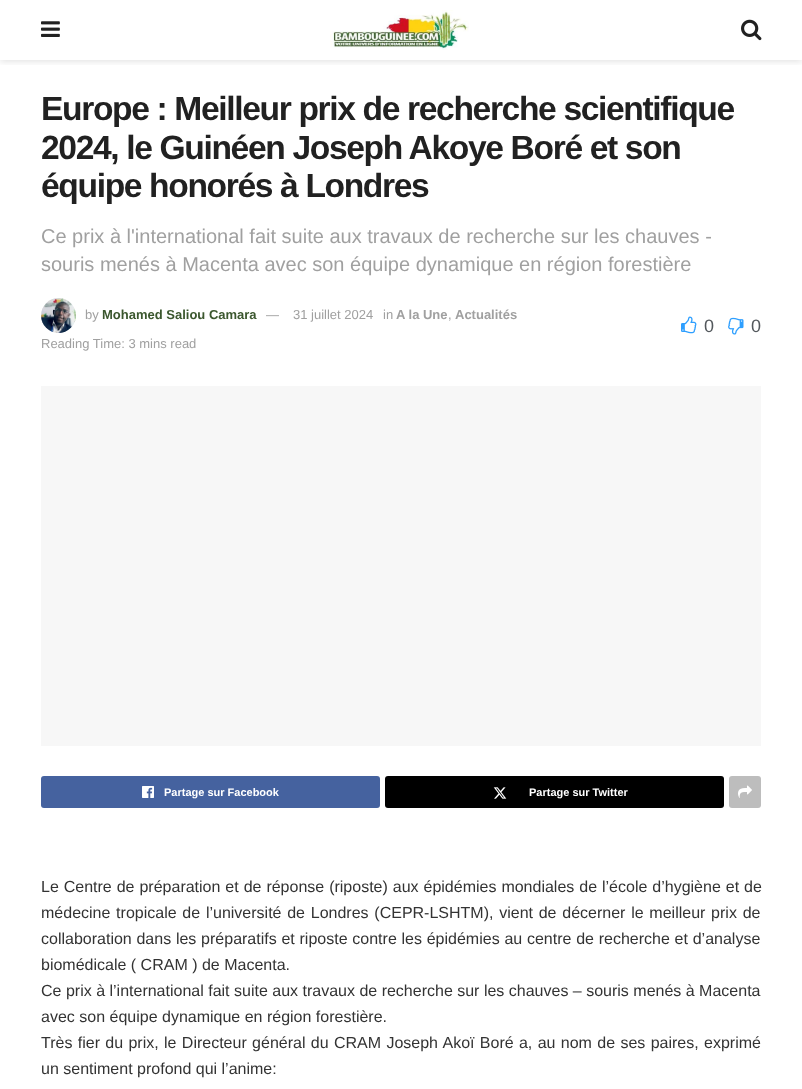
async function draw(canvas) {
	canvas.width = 802;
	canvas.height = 1089;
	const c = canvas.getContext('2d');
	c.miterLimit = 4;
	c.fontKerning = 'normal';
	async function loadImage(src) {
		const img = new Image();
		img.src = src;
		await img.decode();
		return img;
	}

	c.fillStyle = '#fff';
	c.fillRect(0, 0, 802, 1089);
	c.save();
	c.beginPath();
	c.rect(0, 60, 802, 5);
	c.clip();
	c.fillStyle = '#0000001a';
	c.filter = 'blur(3px)';
	c.beginPath();
	c.rect(0, 2, 802, 60);
	c.fill();
	c.filter = 'none';
	c.restore();
	c.drawImage(await loadImage('img1.png'), 41, 21, 19, 16);
	c.drawImage(await loadImage('img2.png'), 330, 10, 139, 40);
	c.drawImage(await loadImage('img3.png'), 741, 19, 21, 22);
	c.letterSpacing = '-1.35px';
	c.font = 'bold 33.6px Liberation Sans';
	c.fillStyle = '#212121';
	for (const [text, x, y] of [
		['Europe : Meilleur prix de recherche scientifique', 41, 120],
		['2024, le Guinéen Joseph Akoye Boré et son', 41, 159],
		['équipe honorés à Londres', 41, 197],
	]) {
		c.fillText(text, x, y);
	}
	c.letterSpacing = '0px';
	c.font = '20px Liberation Sans';
	c.fillStyle = '#a0a0a0';
	c.fillText('Ce prix à l\'international fait suite aux travaux de recherche sur les chauves -', 41, 243);
	c.fillText('souris menés à Macenta avec son équipe dynamique en région forestière', 41, 271);
	c.drawImage(await loadImage('img4.png'), 41, 298, 35, 35);
	c.font = '13px Liberation Sans';
	c.fillText('by', 85, 319);
	c.font = 'bold 13px Liberation Sans';
	c.fillStyle = '#3b572e';
	c.fillText('Mohamed Saliou Camara', 102, 319);
	c.font = '13px Liberation Sans';
	c.fillStyle = '#a0a0a0';
	for (const [text, x, y] of [
		['—', 266, 319],
		['31 juillet 2024', 293, 319],
		['in', 383, 319],
	]) {
		c.fillText(text, x, y);
	}
	c.font = 'bold 13px Liberation Sans';
	c.fillText('A la Une', 396, 319);
	c.font = '13px Liberation Sans';
	c.fillText(',', 448, 319);
	c.font = 'bold 13px Liberation Sans';
	c.fillText('Actualités', 455, 319);
	c.font = '13px Liberation Sans';
	c.fillText('Reading Time: 3 mins read', 41, 348);
	c.drawImage(await loadImage('img5.png'), 681, 316, 16, 18);
	c.font = '18px Liberation Sans';
	c.fillStyle = '#53585c';
	c.fillText('0', 704, 332);
	c.drawImage(await loadImage('img6.png'), 728, 317, 16, 18);
	c.fillText('0', 751, 332);
	c.fillStyle = '#f7f7f7';
	c.fillRect(41, 386, 720, 360);
	c.fillStyle = '#45629f';
	c.beginPath();
	c.roundRect(41, 776, 339, 32, 3);
	c.fill();
	c.drawImage(await loadImage('img7.png'), 142, 786, 12, 12);
	c.font = 'bold 11px Liberation Sans';
	c.fillStyle = '#fff';
	c.fillText('Partage sur Facebook', 164, 796);
	c.fillStyle = '#000';
	c.beginPath();
	c.roundRect(385, 776, 339, 32, 3);
	c.fill();
	c.drawImage(await loadImage('img8.png'), 493, 787, 14, 12);
	c.fillStyle = '#fff';
	c.fillText('Partage sur Twitter', 529, 796);
	c.fillStyle = '#bdbdbd';
	c.beginPath();
	c.roundRect(729, 776, 32, 32, 3);
	c.fill();
	c.drawImage(await loadImage('img9.png'), 738, 785, 14, 13);
	c.wordSpacing = '0.5px';
	c.font = '16px Liberation Sans';
	c.fillStyle = '#333';
	c.fillText('Le Centre de préparation et de réponse (riposte) aux épidémies mondiales de l’école d’hygiène et de', 41, 892);
	c.wordSpacing = '1.3px';
	c.fillText('médecine tropicale de l’université de Londres (CEPR-LSHTM), vient de décerner le meilleur prix de', 41, 918);
	c.wordSpacing = '0.3px';
	c.fillText('collaboration dans les préparatifs et riposte contre les épidémies au centre de recherche et d’analyse', 41, 944);
	c.wordSpacing = '0px';
	for (const [text, x, y] of [
		['biomédicale ( CRAM ) de Macenta.', 41, 970],
		['Ce prix à l’international fait suite aux travaux de recherche sur les chauves – souris menés à Macenta', 41, 996],
		['avec son équipe dynamique en région forestière.', 41, 1022],
	]) {
		c.fillText(text, x, y);
	}
	c.wordSpacing = '0.9px';
	c.fillText('Très fier du prix, le Directeur général du CRAM Joseph Akoï Boré a, au nom de ses paires, exprimé', 41, 1048);
	c.wordSpacing = '0px';
	c.fillText('un sentiment profond qui l’anime:', 41, 1074);
}

draw(document.querySelector('canvas'));
